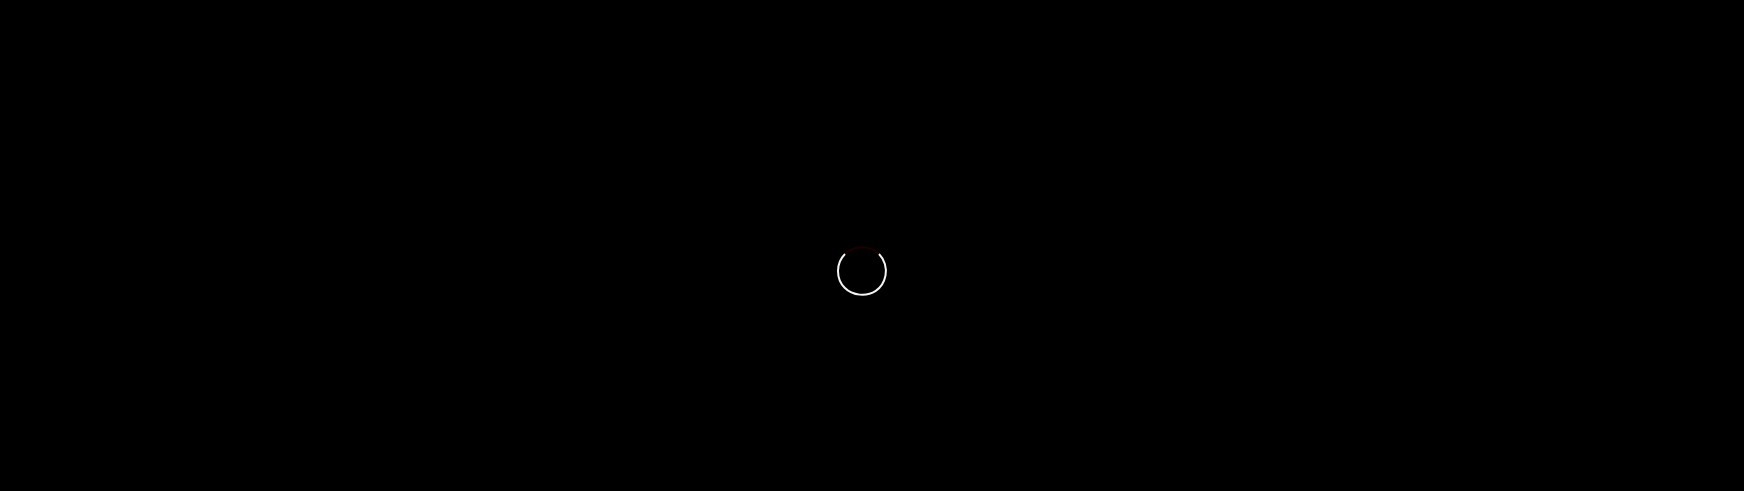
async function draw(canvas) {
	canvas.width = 1744;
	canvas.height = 491;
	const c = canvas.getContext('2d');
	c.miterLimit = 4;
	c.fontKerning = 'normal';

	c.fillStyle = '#000';
	c.fillRect(0, 0, 1744, 491);
	c.beginPath();
	c.moveTo(845, 254);
	c.bezierCurveTo(854.5, 245, 869.5, 245, 879, 254);
	c.strokeStyle = '#1c0000';
	c.lineWidth = 2;
	c.stroke();
	c.beginPath();
	c.moveTo(879, 254);
	c.bezierCurveTo(884.5, 259.5, 887, 268, 885.5, 275.5);
	c.bezierCurveTo(880, 304, 838, 299.5, 838, 271);
	c.bezierCurveTo(838, 264.5, 840.5, 258.5, 845, 254);
	c.strokeStyle = '#f3f3f3';
	c.stroke();
}

draw(document.querySelector('canvas'));
